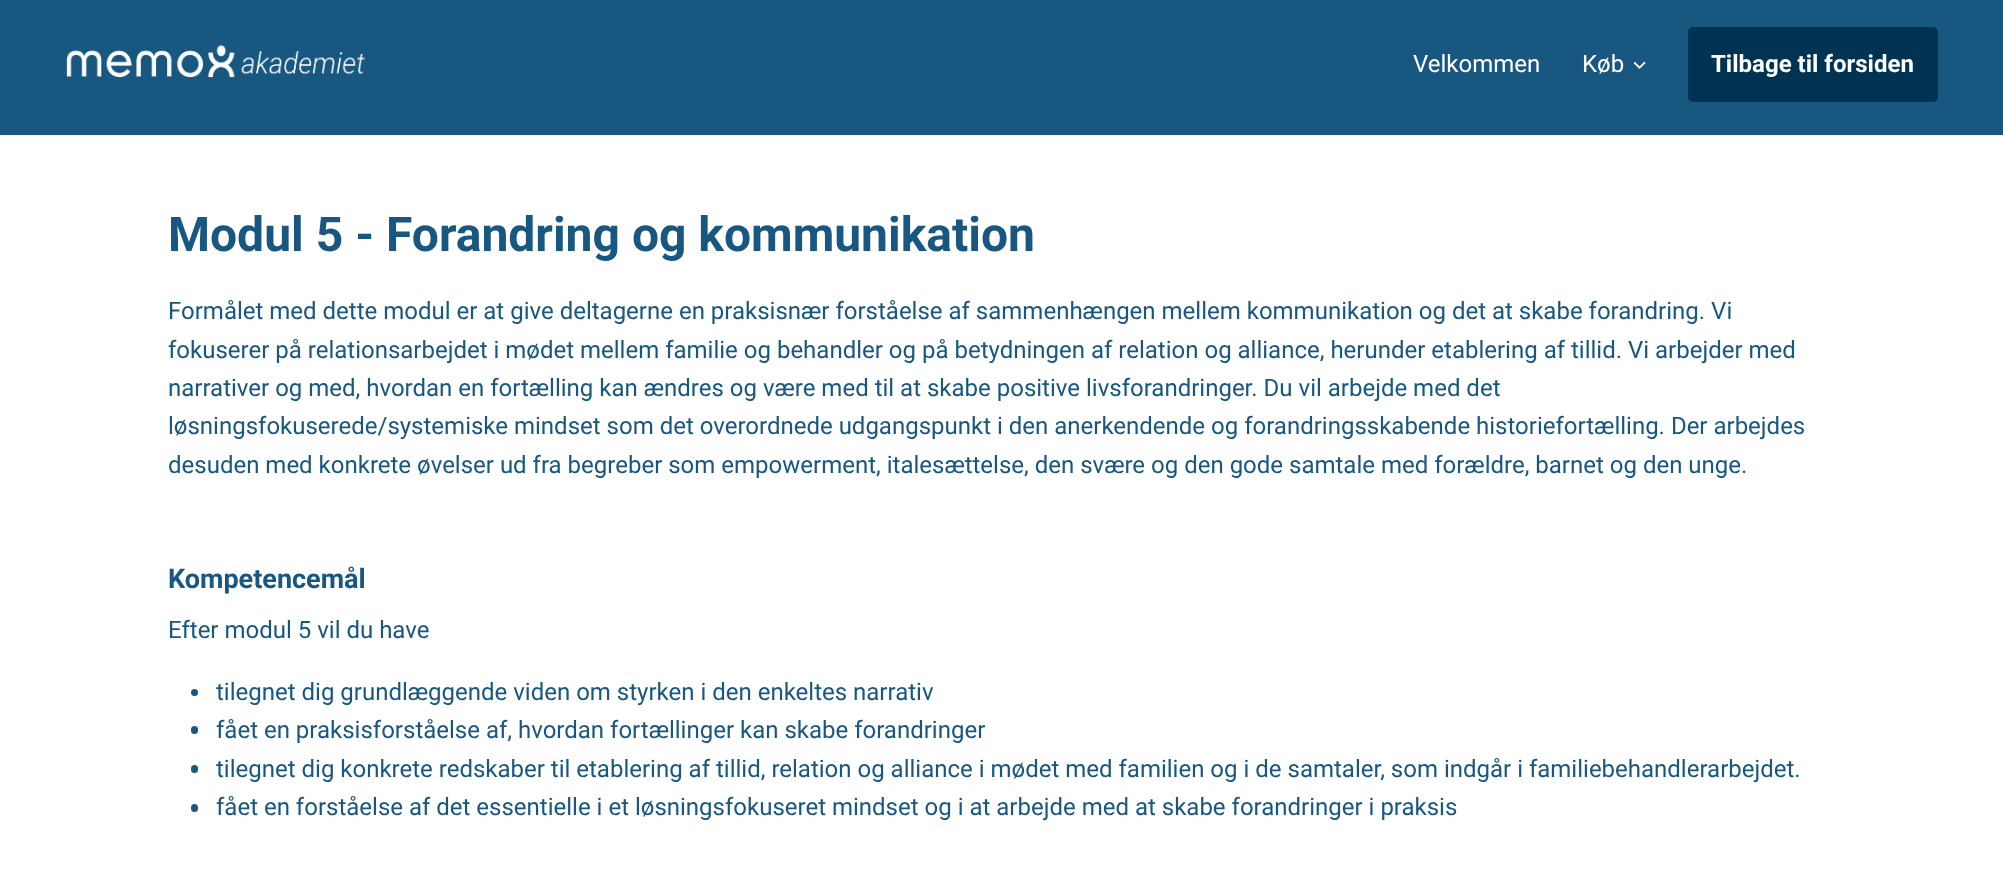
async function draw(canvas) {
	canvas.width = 2003;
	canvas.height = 875;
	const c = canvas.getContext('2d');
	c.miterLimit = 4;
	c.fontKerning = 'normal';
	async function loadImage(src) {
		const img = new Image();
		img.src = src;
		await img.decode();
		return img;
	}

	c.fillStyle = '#fff';
	c.fillRect(0, 0, 2003, 875);
	c.fillStyle = '#185780';
	c.fillRect(0, 0, 2003, 135);
	c.drawImage(await loadImage('img1.png'), 66, 44, 299, 34);
	c.font = '24px Roboto';
	c.fillStyle = '#fff';
	c.fillText('Velkommen', 1413, 72);
	c.fillText('Køb', 1582, 72);
	c.drawImage(await loadImage('img2.png'), 1634, 62, 12, 7);
	c.fillStyle = '#003351';
	c.beginPath();
	c.moveTo(1692, 30);
	c.lineTo(1934, 30);
	c.bezierCurveTo(1934, 30, 1935, 31, 1935, 32);
	c.lineTo(1935, 98);
	c.lineTo(1690, 98);
	c.lineTo(1690, 32);
	c.bezierCurveTo(1690, 31, 1691, 30, 1692, 30);
	c.closePath();
	c.fill();
	c.beginPath();
	c.roundRect(1689.5, 28.5, 247, 72, 3.5);
	c.strokeStyle = '#003351';
	c.lineWidth = 3;
	c.stroke();
	c.fillRect(1691, 98, 246, 1);
	c.font = 'bold 24px Roboto';
	c.fillStyle = '#fff';
	c.fillText('Tilbage til forsiden', 1711, 72);
	c.font = 'bold 48px Roboto';
	c.fillStyle = '#185780';
	c.fillText('Modul 5 - Forandring og kommunikation', 168, 251);
	c.font = '24px Roboto';
	for (const [text, x, y] of [
		['Formålet med dette modul er at give deltagerne en praksisnær forståelse af sammenhængen mellem kommunikation og det at skabe forandring. Vi', 168, 319],
		['fokuserer på relationsarbejdet i mødet mellem familie og behandler og på betydningen af relation og alliance, herunder etablering af tillid. Vi arbejder med', 168, 358],
		['narrativer og med, hvordan en fortælling kan ændres og være med til at skabe positive livsforandringer. Du vil arbejde med det', 168, 396],
		['løsningsfokuserede/systemiske mindset som det overordnede udgangspunkt i den anerkendende og forandringsskabende historiefortælling. Der arbejdes', 168, 434],
		['desuden med konkrete øvelser ud fra begreber som empowerment, italesættelse, den svære og den gode samtale med forældre, barnet og den unge.', 168, 473],
	]) {
		c.fillText(text, x, y);
	}
	c.font = 'bold 27px Roboto';
	c.fillText('Kompetencemål', 168, 588);
	c.font = '24px Roboto';
	c.fillText('Efter modul 5 vil du have', 168, 638);
	c.beginPath();
	c.arc(194.5, 692.5, 3.5, 0, 2 * Math.PI);
	c.fill();
	c.fillText('tilegnet dig grundlæggende viden om styrken i den enkeltes narrativ', 216, 700);
	c.beginPath();
	c.roundRect(191, 726, 7, 8, 3.5);
	c.fill();
	c.fillText('fået en praksisforståelse af, hvordan fortællinger kan skabe forandringer', 216, 738);
	c.beginPath();
	c.roundRect(191, 765, 7, 8, 3.5);
	c.fill();
	c.fillText('tilegnet dig konkrete redskaber til etablering af tillid, relation og alliance i mødet med familien og i de samtaler, som indgår i familiebehandlerarbejdet.', 216, 777);
	c.beginPath();
	c.roundRect(191, 804, 7, 8, 3.5);
	c.fill();
	c.fillText('fået en forståelse af det essentielle i et løsningsfokuseret mindset og i at arbejde med at skabe forandringer i praksis', 216, 815);
}

draw(document.querySelector('canvas'));
